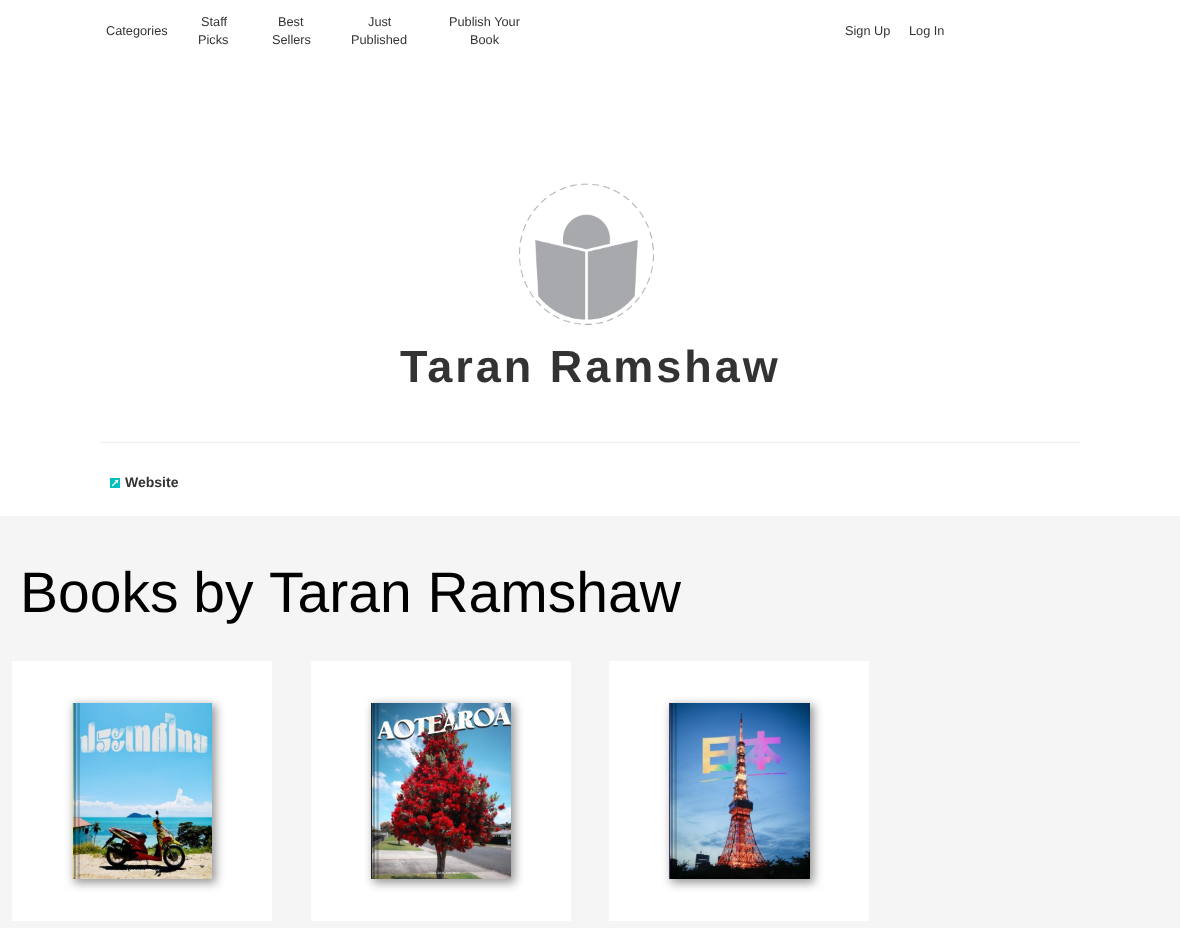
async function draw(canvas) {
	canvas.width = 1180;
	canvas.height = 928;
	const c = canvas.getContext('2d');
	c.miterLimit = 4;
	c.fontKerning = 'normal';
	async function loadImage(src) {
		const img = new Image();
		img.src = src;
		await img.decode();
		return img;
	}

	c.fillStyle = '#fff';
	c.fillRect(0, 0, 1180, 928);
	c.font = '12.75px Liberation Sans';
	c.fillStyle = '#333';
	for (const [text, x, y] of [
		['Categories', 106, 35],
		['Staff', 201, 26],
		['Picks', 198, 44],
		['Best', 278, 26],
		['Sellers', 272, 44],
		['Just', 368, 26],
		['Published', 351, 44],
		['Publish Your', 449, 26],
		['Book', 470, 44],
		['Sign Up', 845, 35],
		['Log In', 909, 35],
	]) {
		c.fillText(text, x, y);
	}
	c.drawImage(await loadImage('img1.png'), 519, 183, 136, 142);
	c.letterSpacing = '3px';
	c.font = 'bold 45px Liberation Sans';
	c.fillText('Taran Ramshaw', 400, 382);
	c.fillStyle = '#eee';
	c.fillRect(100, 442, 980, 1);
	c.drawImage(await loadImage('img2.png'), 110, 478, 10, 10);
	c.letterSpacing = '0px';
	c.font = 'bold 14px Liberation Sans';
	c.fillStyle = '#333';
	c.fillText('Website', 125, 487);
	c.fillStyle = '#f5f5f5';
	c.fillRect(0, 516, 1180, 412);
	c.wordSpacing = '-1px';
	c.font = '57px Liberation Sans';
	c.fillStyle = '#000';
	c.fillText('Books by', 20, 612);
	c.wordSpacing = '0px';
	c.fillText('Taran Ramshaw', 269, 612);
	c.fillStyle = '#fff';
	c.fillRect(12, 661, 260, 260);
	c.fillStyle = '#999';
	c.filter = 'blur(5px)';
	c.beginPath();
	c.rect(74, 705, 142, 178);
	c.fill();
	c.filter = 'none';
	c.drawImage(await loadImage('img3.png'), 72, 703, 140, 176);
	c.fillStyle = '#fff';
	c.fillRect(311, 661, 260, 260);
	c.fillStyle = '#999';
	c.filter = 'blur(5px)';
	c.beginPath();
	c.rect(373, 705, 142, 178);
	c.fill();
	c.filter = 'none';
	c.drawImage(await loadImage('img4.png'), 371, 703, 140, 176);
	c.fillStyle = '#fff';
	c.fillRect(609, 661, 260, 260);
	c.fillStyle = '#999';
	c.filter = 'blur(5px)';
	c.beginPath();
	c.rect(671, 705, 143, 178);
	c.fill();
	c.filter = 'none';
	c.drawImage(await loadImage('img5.png'), 669, 703, 141, 176);
}

draw(document.querySelector('canvas'));
